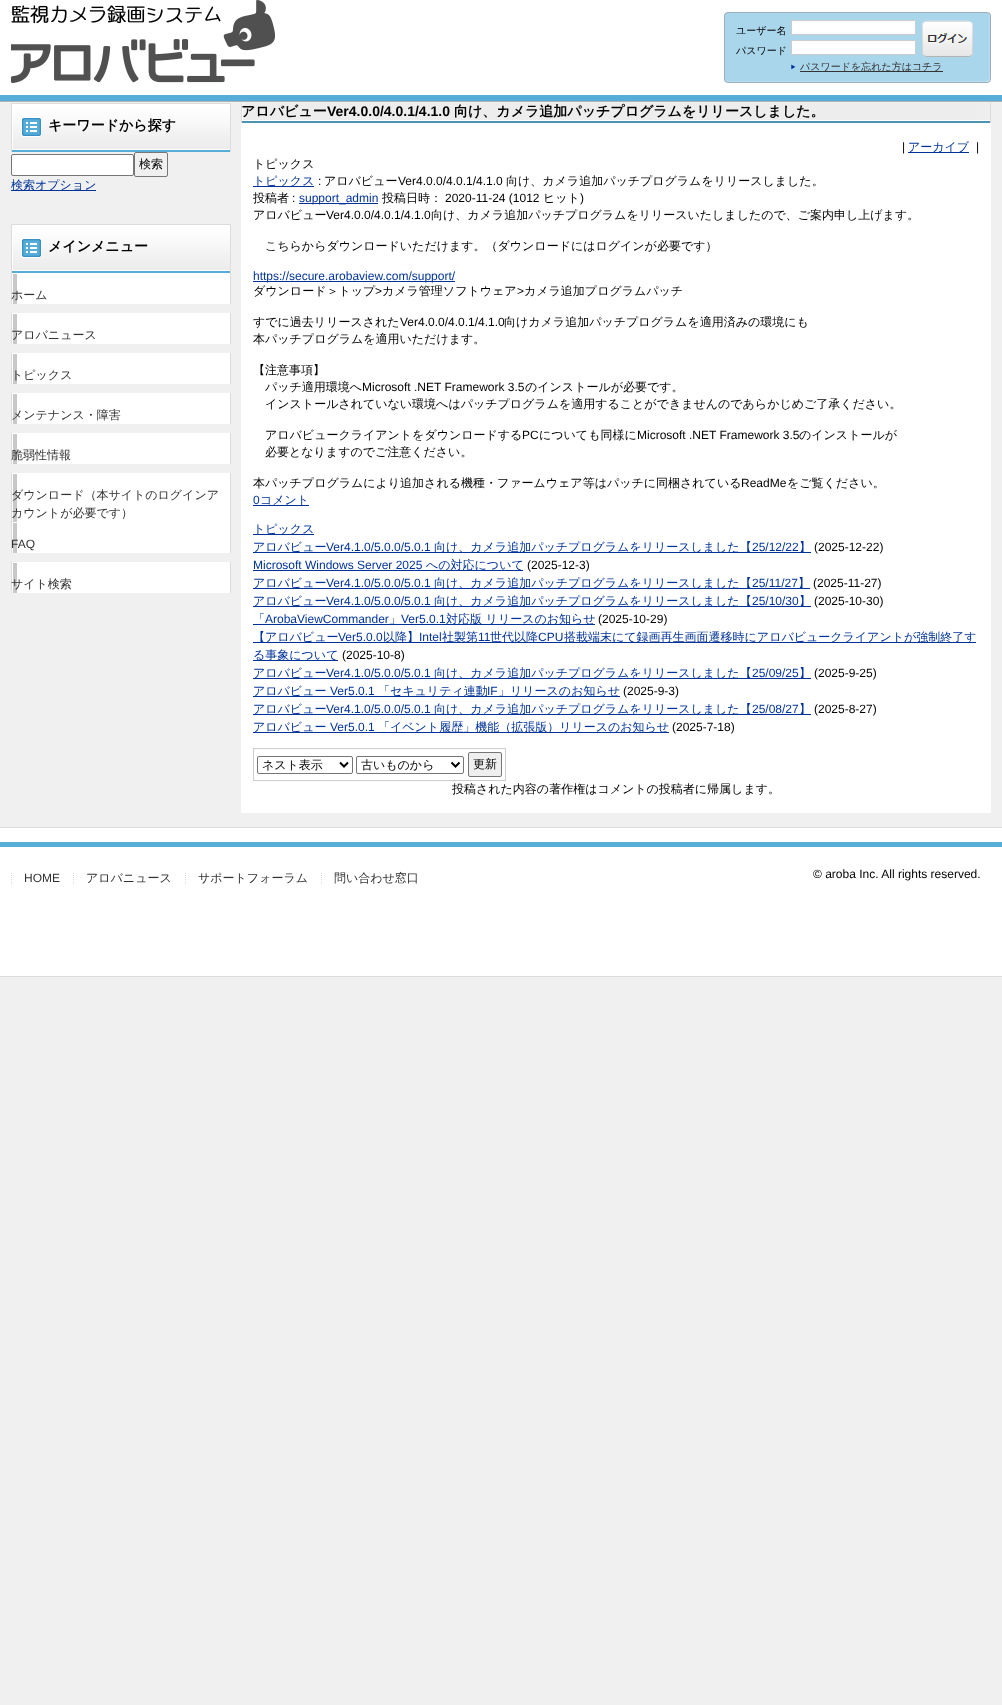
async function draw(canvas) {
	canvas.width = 1002;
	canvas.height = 1705;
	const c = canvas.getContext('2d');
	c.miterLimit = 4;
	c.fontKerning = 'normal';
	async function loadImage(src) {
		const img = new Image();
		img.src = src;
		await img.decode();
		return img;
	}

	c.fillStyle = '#f0f0f0';
	c.fillRect(0, 0, 1002, 1705);
	c.drawImage(await loadImage('img1.png'), 0, 0, 1002, 102);
	c.drawImage(await loadImage('img2.png'), 11, 0, 264, 83);
	c.drawImage(await loadImage('img3.png'), 724, 12, 267, 71);
	c.font = '500 10px WenQuanYi Zen Hei';
	c.fillStyle = '#000';
	c.fillText('ユーザー名', 736, 34);
	c.fillStyle = '#fff';
	c.beginPath();
	c.rect(791.5, 20.5, 124, 14);
	c.fill();
	c.strokeStyle = '#ccc';
	c.stroke();
	c.fillStyle = '#000';
	c.fillText('パスワード', 736, 54);
	c.fillStyle = '#fff';
	c.beginPath();
	c.rect(791.5, 40.5, 124, 14);
	c.fill();
	c.stroke();
	c.drawImage(await loadImage('img4.png'), 922, 20, 51, 37);
	c.drawImage(await loadImage('img5.png'), 791, 64, 5, 6);
	c.fillStyle = '#333';
	c.fillRect(800, 71, 143, 1);
	c.fillStyle = '#323232';
	c.fillText('パスワードを忘れた方はコチラ', 800, 70);
	c.drawImage(await loadImage('img6.png'), 11, 103, 220, 49);
	c.font = 'bold 14px WenQuanYi Zen Hei';
	c.fillStyle = '#000';
	c.fillText('キーワードから探す', 48, 130);
	c.fillStyle = '#fff';
	c.beginPath();
	c.roundRect(11.5, 154.5, 122, 21, 1.5);
	c.fill();
	c.strokeStyle = '#767676';
	c.stroke();
	c.beginPath();
	c.roundRect(134.5, 152.5, 33, 24, 1.5);
	c.stroke();
	c.font = '500 12px WenQuanYi Zen Hei';
	c.fillStyle = '#000';
	c.fillText('検索', 139, 168);
	c.fillStyle = '#039';
	c.fillRect(11, 190, 85, 1);
	c.fillText('検索オプション', 11, 189);
	c.drawImage(await loadImage('img6.png'), 11, 224, 220, 49);
	c.font = 'bold 14px WenQuanYi Zen Hei';
	c.fillStyle = '#000';
	c.fillText('メインメニュー', 48, 251);
	c.drawImage(await loadImage('img7.png'), 11, 273, 220, 31);
	c.font = '500 12px WenQuanYi Zen Hei';
	c.fillStyle = '#323232';
	c.fillText('ホーム', 11, 299);
	c.drawImage(await loadImage('img7.png'), 11, 313, 220, 31);
	c.fillText('アロバニュース', 11, 339);
	c.drawImage(await loadImage('img7.png'), 11, 353, 220, 31);
	c.fillText('トピックス', 11, 379);
	c.drawImage(await loadImage('img7.png'), 11, 393, 220, 31);
	c.fillText('メンテナンス・障害', 11, 419);
	c.drawImage(await loadImage('img7.png'), 11, 433, 220, 31);
	c.fillText('脆弱性情報', 11, 459);
	c.drawImage(await loadImage('img8.png'), 11, 473, 220, 49);
	c.fillText('ダウンロード（本サイトのログインア', 11, 499);
	c.fillText('カウントが必要です）', 11, 517);
	c.drawImage(await loadImage('img7.png'), 11, 522, 220, 31);
	c.font = '12px Liberation Sans';
	c.fillText('FAQ', 11, 548);
	c.drawImage(await loadImage('img7.png'), 11, 562, 220, 31);
	c.font = '500 12px WenQuanYi Zen Hei';
	c.fillText('サイト検索', 11, 588);
	c.fillStyle = '#fff';
	c.fillRect(241, 123, 750, 690);
	c.drawImage(await loadImage('img9.png'), 241, 103, 750, 20);
	c.font = 'bold 14px WenQuanYi Zen Hei';
	c.fillStyle = '#000';
	c.fillText('アロバビュー', 241, 116);
	c.font = 'bold 14px Liberation Sans';
	c.fillText('Ver4.0.0/4.0.1/4.1.0', 327, 116);
	c.font = 'bold 14px WenQuanYi Zen Hei';
	c.fillText('向け、カメラ追加パッチプログラムをリリースしました。', 454, 116);
	c.font = '12px Liberation Sans';
	c.fillText('|', 902, 151);
	c.fillStyle = '#039';
	c.fillRect(908, 152, 61, 1);
	c.font = '500 12px WenQuanYi Zen Hei';
	c.fillText('アーカイブ', 908, 151);
	c.font = '12px Liberation Sans';
	c.fillStyle = '#000';
	c.fillText('|', 976, 151);
	c.font = '500 12px WenQuanYi Zen Hei';
	c.fillText('トピックス', 253, 168);
	c.fillStyle = '#039';
	c.fillRect(253, 186, 61, 1);
	c.fillText('トピックス', 253, 185);
	c.font = '12px Liberation Sans';
	c.fillStyle = '#000';
	c.fillText(':', 318, 185);
	c.font = '500 12px WenQuanYi Zen Hei';
	c.fillText('アロバビュー', 324, 185);
	c.font = '12px Liberation Sans';
	c.fillText('Ver4.0.0/4.0.1/4.1.0', 398, 185);
	c.font = '500 12px WenQuanYi Zen Hei';
	c.fillText('向け、カメラ追加パッチプログラムをリリースしました。', 506, 185);
	c.fillText('投稿者', 253, 202);
	c.font = '12px Liberation Sans';
	c.fillText(':', 292, 202);
	c.fillStyle = '#039';
	c.fillRect(299, 203, 79, 1);
	c.fillText('support_admin', 299, 202);
	c.font = '500 12px WenQuanYi Zen Hei';
	c.fillStyle = '#000';
	c.fillText('投稿日時：', 382, 202);
	c.font = '12px Liberation Sans';
	c.fillText('2020-11-24 (1012', 445, 202);
	c.font = '500 12px WenQuanYi Zen Hei';
	c.fillText('ヒット', 543, 202);
	c.font = '12px Liberation Sans';
	c.fillText(')', 580, 202);
	c.font = '500 12px WenQuanYi Zen Hei';
	c.fillText('アロバビュー', 253, 219);
	c.font = '12px Liberation Sans';
	c.fillText('Ver4.0.0/4.0.1/4.1.0', 326, 219);
	c.font = '500 12px WenQuanYi Zen Hei';
	c.fillText('向け、カメラ追加パッチプログラムをリリースいたしましたので、ご案内申し上げます。', 431, 219);
	c.fillText('こちらからダウンロードいただけます。（ダウンロードにはログインが必要です）', 265, 250);
	c.fillStyle = '#039';
	c.fillRect(253, 281, 202, 1);
	c.font = '12px Liberation Sans';
	c.fillText('https://secure.arobaview.com/support/', 253, 280);
	c.font = '500 12px WenQuanYi Zen Hei';
	c.fillStyle = '#000';
	c.fillText('ダウンロード＞トップ', 253, 295);
	c.font = '12px Liberation Sans';
	c.fillText('>', 375, 295);
	c.font = '500 12px WenQuanYi Zen Hei';
	c.fillText('カメラ管理ソフトウェア', 382, 295);
	c.font = '12px Liberation Sans';
	c.fillText('>', 517, 295);
	c.font = '500 12px WenQuanYi Zen Hei';
	c.fillText('カメラ追加プログラムパッチ', 524, 295);
	c.fillText('すでに過去リリースされた', 253, 326);
	c.font = '12px Liberation Sans';
	c.fillText('Ver4.0.0/4.0.1/4.1.0', 400, 326);
	c.font = '500 12px WenQuanYi Zen Hei';
	for (const [text, x, y] of [
		['向けカメラ追加パッチプログラムを適用済みの環境にも', 504, 326],
		['本パッチプログラムを適用いただけます。', 253, 343],
		['【注意事項】', 253, 374],
		['パッチ適用環境へ', 265, 391],
	]) {
		c.fillText(text, x, y);
	}
	c.font = '12px Liberation Sans';
	c.fillText('Microsoft .NET Framework 3.5', 362, 391);
	c.font = '500 12px WenQuanYi Zen Hei';
	for (const [text, x, y] of [
		['のインストールが必要です。', 525, 391],
		['インストールされていない環境へはパッチプログラムを適用することができませんのであらかじめご了承ください。', 265, 408],
		['アロバビュークライアントをダウンロードする', 265, 439],
	]) {
		c.fillText(text, x, y);
	}
	c.font = '12px Liberation Sans';
	c.fillText('PC', 522, 439);
	c.font = '500 12px WenQuanYi Zen Hei';
	c.fillText('についても同様に', 539, 439);
	c.font = '12px Liberation Sans';
	c.fillText('Microsoft .NET Framework 3.5', 637, 439);
	c.font = '500 12px WenQuanYi Zen Hei';
	for (const [text, x, y] of [
		['のインストールが', 799, 439],
		['必要となりますのでご注意ください。', 265, 456],
		['本パッチプログラムにより追加される機種・ファームウェア等はパッチに同梱されている', 253, 487],
	]) {
		c.fillText(text, x, y);
	}
	c.font = '12px Liberation Sans';
	c.fillText('ReadMe', 741, 487);
	c.font = '500 12px WenQuanYi Zen Hei';
	c.fillText('をご覧ください。', 787, 487);
	c.font = '12px Liberation Sans';
	c.fillStyle = '#039';
	c.fillText('0', 253, 504);
	c.fillRect(253, 505, 56, 1);
	c.font = '500 12px WenQuanYi Zen Hei';
	c.fillText('コメント', 260, 504);
	c.fillRect(253, 534, 61, 1);
	c.fillText('トピックス', 253, 533);
	c.fillText('アロバビュー', 253, 551);
	c.font = '12px Liberation Sans';
	c.fillText('Ver4.1.0/5.0.0/5.0.1', 326, 551);
	c.fillRect(253, 552, 558, 1);
	c.font = '500 12px WenQuanYi Zen Hei';
	c.fillText('向け、カメラ追加パッチプログラムをリリースしました【', 434, 551);
	c.font = '12px Liberation Sans';
	c.fillText('25/12/22', 752, 551);
	c.font = '500 12px WenQuanYi Zen Hei';
	c.fillText('】', 799, 551);
	c.font = '12px Liberation Sans';
	c.fillStyle = '#000';
	c.fillText('(2025-12-22)', 814, 551);
	c.fillStyle = '#039';
	c.fillText('Microsoft Windows Server 2025', 253, 569);
	c.fillRect(253, 570, 270, 1);
	c.font = '500 12px WenQuanYi Zen Hei';
	c.fillText('への対応について', 426, 569);
	c.font = '12px Liberation Sans';
	c.fillStyle = '#000';
	c.fillText('(2025-12-3)', 527, 569);
	c.font = '500 12px WenQuanYi Zen Hei';
	c.fillStyle = '#039';
	c.fillText('アロバビュー', 253, 587);
	c.font = '12px Liberation Sans';
	c.fillText('Ver4.1.0/5.0.0/5.0.1', 326, 587);
	c.fillRect(253, 588, 557, 1);
	c.font = '500 12px WenQuanYi Zen Hei';
	c.fillText('向け、カメラ追加パッチプログラムをリリースしました【', 434, 587);
	c.font = '12px Liberation Sans';
	c.fillText('25/11/27', 752, 587);
	c.font = '500 12px WenQuanYi Zen Hei';
	c.fillText('】', 798, 587);
	c.font = '12px Liberation Sans';
	c.fillStyle = '#000';
	c.fillText('(2025-11-27)', 813, 587);
	c.font = '500 12px WenQuanYi Zen Hei';
	c.fillStyle = '#039';
	c.fillText('アロバビュー', 253, 605);
	c.font = '12px Liberation Sans';
	c.fillText('Ver4.1.0/5.0.0/5.0.1', 326, 605);
	c.fillRect(253, 606, 558, 1);
	c.font = '500 12px WenQuanYi Zen Hei';
	c.fillText('向け、カメラ追加パッチプログラムをリリースしました【', 434, 605);
	c.font = '12px Liberation Sans';
	c.fillText('25/10/30', 752, 605);
	c.font = '500 12px WenQuanYi Zen Hei';
	c.fillText('】', 799, 605);
	c.font = '12px Liberation Sans';
	c.fillStyle = '#000';
	c.fillText('(2025-10-30)', 814, 605);
	c.font = '500 12px WenQuanYi Zen Hei';
	c.fillStyle = '#039';
	c.fillText('「', 253, 623);
	c.font = '12px Liberation Sans';
	c.fillText('ArobaViewCommander', 265, 623);
	c.fillRect(253, 624, 342, 1);
	c.font = '500 12px WenQuanYi Zen Hei';
	c.fillText('」', 389, 623);
	c.font = '12px Liberation Sans';
	c.fillText('Ver5.0.1', 401, 623);
	c.font = '500 12px WenQuanYi Zen Hei';
	c.fillText('対応版 リリースのお知らせ', 446, 623);
	c.font = '12px Liberation Sans';
	c.fillStyle = '#000';
	c.fillText('(2025-10-29)', 598, 623);
	c.fillStyle = '#039';
	c.fillRect(253, 642, 723, 1);
	c.font = '500 12px WenQuanYi Zen Hei';
	c.fillText('【アロバビュー', 253, 641);
	c.font = '12px Liberation Sans';
	c.fillText('Ver5.0.0', 338, 641);
	c.font = '500 12px WenQuanYi Zen Hei';
	c.fillText('以降】', 383, 641);
	c.font = '12px Liberation Sans';
	c.fillText('Intel', 419, 641);
	c.font = '500 12px WenQuanYi Zen Hei';
	c.fillText('社製第', 442, 641);
	c.font = '12px Liberation Sans';
	c.fillText('11', 478, 641);
	c.font = '500 12px WenQuanYi Zen Hei';
	c.fillText('世代以降', 490, 641);
	c.font = '12px Liberation Sans';
	c.fillText('CPU', 538, 641);
	c.font = '500 12px WenQuanYi Zen Hei';
	c.fillText('搭載端末にて録画再生画面遷移時にアロバビュークライアントが強制終了す', 564, 641);
	c.fillRect(253, 660, 85, 1);
	c.fillText('る事象について', 253, 659);
	c.font = '12px Liberation Sans';
	c.fillStyle = '#000';
	c.fillText('(2025-10-8)', 342, 659);
	c.font = '500 12px WenQuanYi Zen Hei';
	c.fillStyle = '#039';
	c.fillText('アロバビュー', 253, 677);
	c.font = '12px Liberation Sans';
	c.fillText('Ver4.1.0/5.0.0/5.0.1', 326, 677);
	c.fillRect(253, 678, 558, 1);
	c.font = '500 12px WenQuanYi Zen Hei';
	c.fillText('向け、カメラ追加パッチプログラムをリリースしました【', 434, 677);
	c.font = '12px Liberation Sans';
	c.fillText('25/09/25', 752, 677);
	c.font = '500 12px WenQuanYi Zen Hei';
	c.fillText('】', 799, 677);
	c.font = '12px Liberation Sans';
	c.fillStyle = '#000';
	c.fillText('(2025-9-25)', 814, 677);
	c.font = '500 12px WenQuanYi Zen Hei';
	c.fillStyle = '#039';
	c.fillText('アロバビュー', 253, 695);
	c.font = '12px Liberation Sans';
	c.fillText('Ver5.0.1', 330, 695);
	c.fillRect(253, 696, 367, 1);
	c.font = '500 12px WenQuanYi Zen Hei';
	c.fillText('「セキュリティ連動', 378, 695);
	c.font = '12px Liberation Sans';
	c.fillText('IF', 487, 695);
	c.font = '500 12px WenQuanYi Zen Hei';
	c.fillText('」リリースのお知らせ', 498, 695);
	c.font = '12px Liberation Sans';
	c.fillStyle = '#000';
	c.fillText('(2025-9-3)', 623, 695);
	c.font = '500 12px WenQuanYi Zen Hei';
	c.fillStyle = '#039';
	c.fillText('アロバビュー', 253, 713);
	c.font = '12px Liberation Sans';
	c.fillText('Ver4.1.0/5.0.0/5.0.1', 326, 713);
	c.fillRect(253, 714, 558, 1);
	c.font = '500 12px WenQuanYi Zen Hei';
	c.fillText('向け、カメラ追加パッチプログラムをリリースしました【', 434, 713);
	c.font = '12px Liberation Sans';
	c.fillText('25/08/27', 752, 713);
	c.font = '500 12px WenQuanYi Zen Hei';
	c.fillText('】', 799, 713);
	c.font = '12px Liberation Sans';
	c.fillStyle = '#000';
	c.fillText('(2025-8-27)', 814, 713);
	c.font = '500 12px WenQuanYi Zen Hei';
	c.fillStyle = '#039';
	c.fillText('アロバビュー', 253, 731);
	c.font = '12px Liberation Sans';
	c.fillText('Ver5.0.1', 330, 731);
	c.fillRect(253, 732, 416, 1);
	c.font = '500 12px WenQuanYi Zen Hei';
	c.fillText('「イベント履歴」機能（拡張版）リリースのお知らせ', 378, 731);
	c.font = '12px Liberation Sans';
	c.fillStyle = '#000';
	c.fillText('(2025-7-18)', 672, 731);
	for (const [x, y, w, h, color] of [
		[253, 748, 253, 1, '#ccc'],
		[505, 748, 1, 33, '#ccc'],
		[253, 780, 253, 1, '#ccc'],
		[253, 748, 1, 33, '#ccc'],
	]) {
		c.fillStyle = color;
		c.fillRect(x, y, w, h);
	}
	c.beginPath();
	c.roundRect(257.5, 756.5, 95, 17, 1.5);
	c.stroke();
	c.beginPath();
	c.moveTo(340, 762.5);
	c.lineTo(344, 766.5);
	c.lineTo(348, 762.5);
	c.strokeStyle = '#000';
	c.lineWidth = 2;
	c.stroke();
	c.font = '500 12px WenQuanYi Zen Hei';
	c.fillStyle = '#000';
	c.fillText('ネスト表示', 262, 769);
	c.beginPath();
	c.roundRect(356.5, 756.5, 107, 17, 1.5);
	c.strokeStyle = '#767676';
	c.lineWidth = 1;
	c.stroke();
	c.beginPath();
	c.moveTo(451.5, 762.5);
	c.lineTo(455.5, 766.5);
	c.lineTo(459.5, 762.5);
	c.strokeStyle = '#000';
	c.lineWidth = 2;
	c.stroke();
	c.fillText('古いものから', 361, 769);
	c.fillStyle = '#efefef';
	c.beginPath();
	c.roundRect(468.5, 752.5, 33, 24, 1.5);
	c.fill();
	c.strokeStyle = '#767676';
	c.lineWidth = 1;
	c.stroke();
	c.fillStyle = '#000';
	c.fillText('更新', 473, 768);
	c.fillText('投稿された内容の著作権はコメントの投稿者に帰属します。', 452, 793);
	c.drawImage(await loadImage('img10.png'), 0, 827, 1002, 150);
	c.drawImage(await loadImage('img11.png'), 11, 873, 1, 11);
	c.font = '12px Liberation Sans';
	c.fillStyle = '#323232';
	c.fillText('HOME', 24, 882);
	c.drawImage(await loadImage('img11.png'), 73, 873, 1, 11);
	c.font = '500 12px WenQuanYi Zen Hei';
	c.fillText('アロバニュース', 86, 882);
	c.drawImage(await loadImage('img11.png'), 185, 873, 1, 11);
	c.fillText('サポートフォーラム', 198, 882);
	c.drawImage(await loadImage('img11.png'), 321, 873, 1, 11);
	c.fillText('問い合わせ窓口', 334, 882);
	c.font = '12px Liberation Sans';
	c.fillStyle = '#000';
	c.fillText('© aroba Inc. All rights reserved.', 813, 878);
}

draw(document.querySelector('canvas'));
